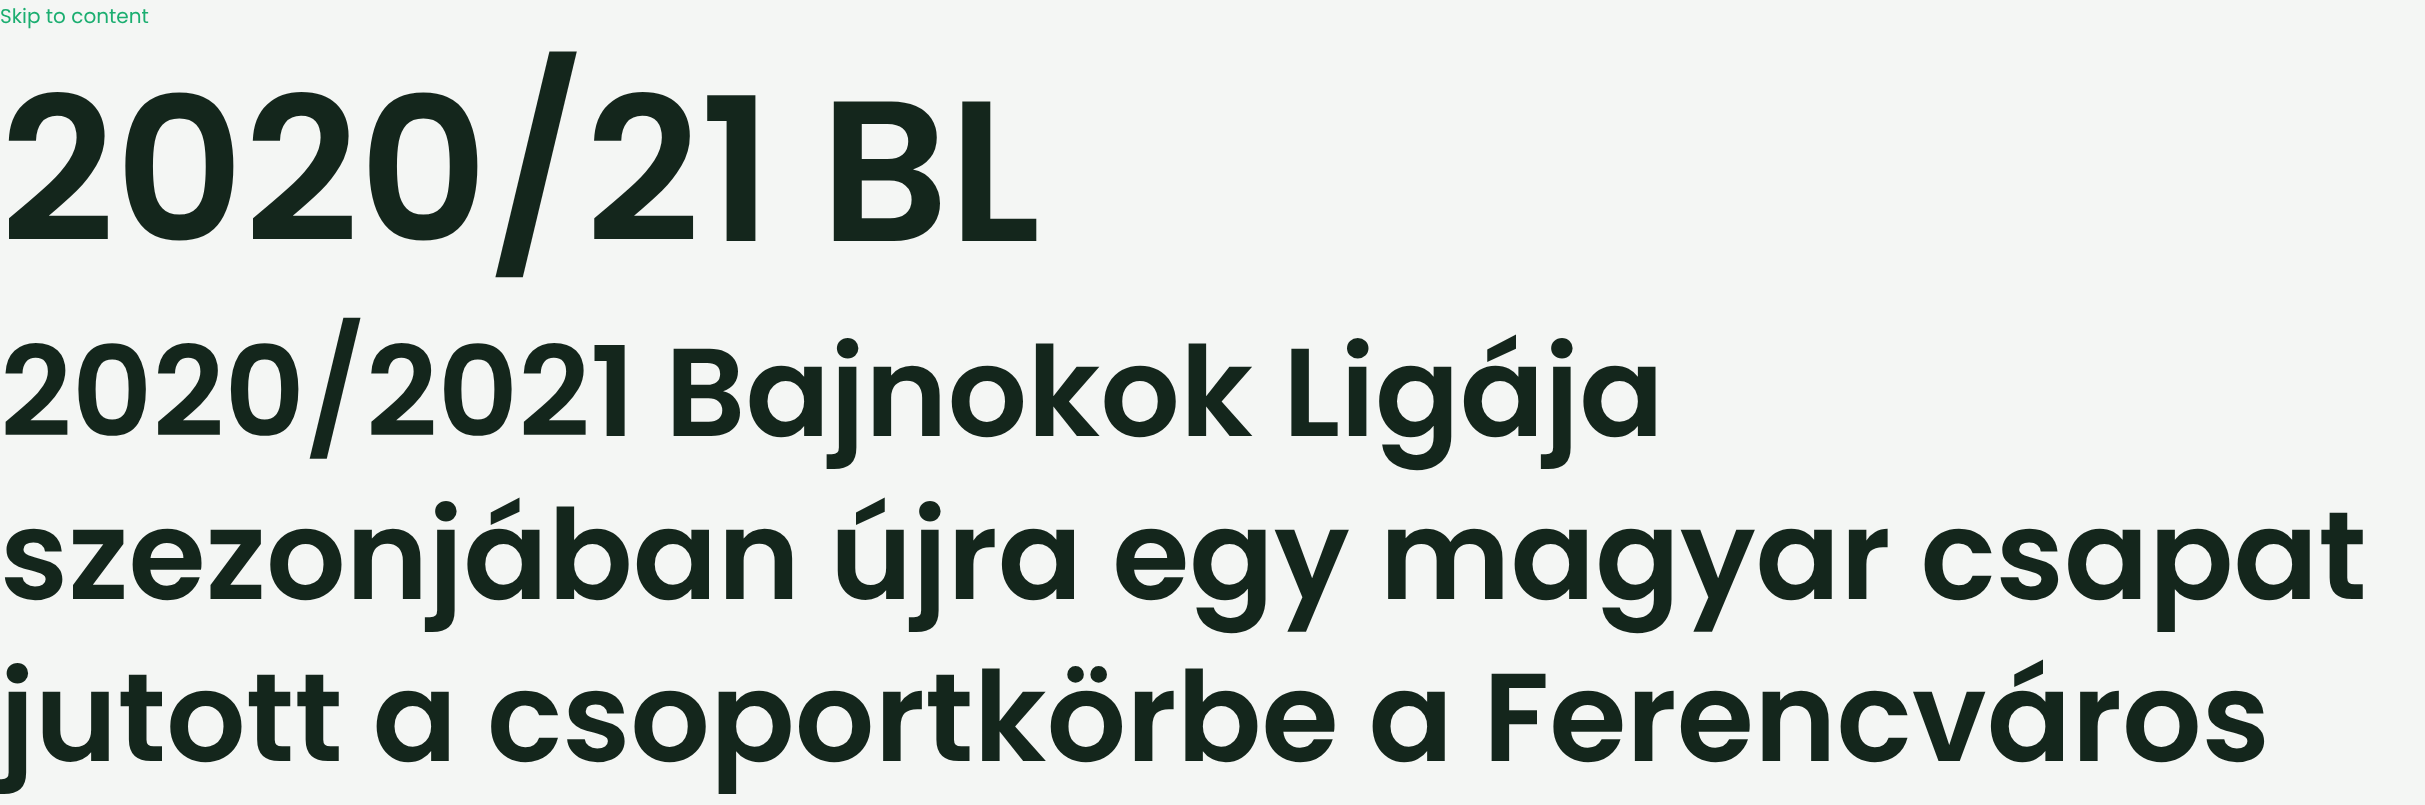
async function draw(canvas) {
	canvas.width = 2425;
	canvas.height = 805;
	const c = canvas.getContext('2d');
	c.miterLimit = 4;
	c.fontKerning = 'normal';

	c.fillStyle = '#f4f6f4';
	c.fillRect(0, 0, 2425, 805);
	c.font = '20px Poppins';
	c.fillStyle = '#1bae70';
	c.fillText('Skip to content', 0, 23);
	c.font = '600 200px Poppins';
	c.fillStyle = '#14261c';
	c.fillText('2020/21 BL', 0, 241);
	c.font = '600 125px Poppins';
	for (const [text, x, y] of [
		['2020/2021 Bajnokok Ligája', 0, 436],
		['szezonjában újra egy magyar csapat', 0, 599],
		['jutott a csoportkörbe a Ferencváros', 0, 761],
	]) {
		c.fillText(text, x, y);
	}
}

draw(document.querySelector('canvas'));
